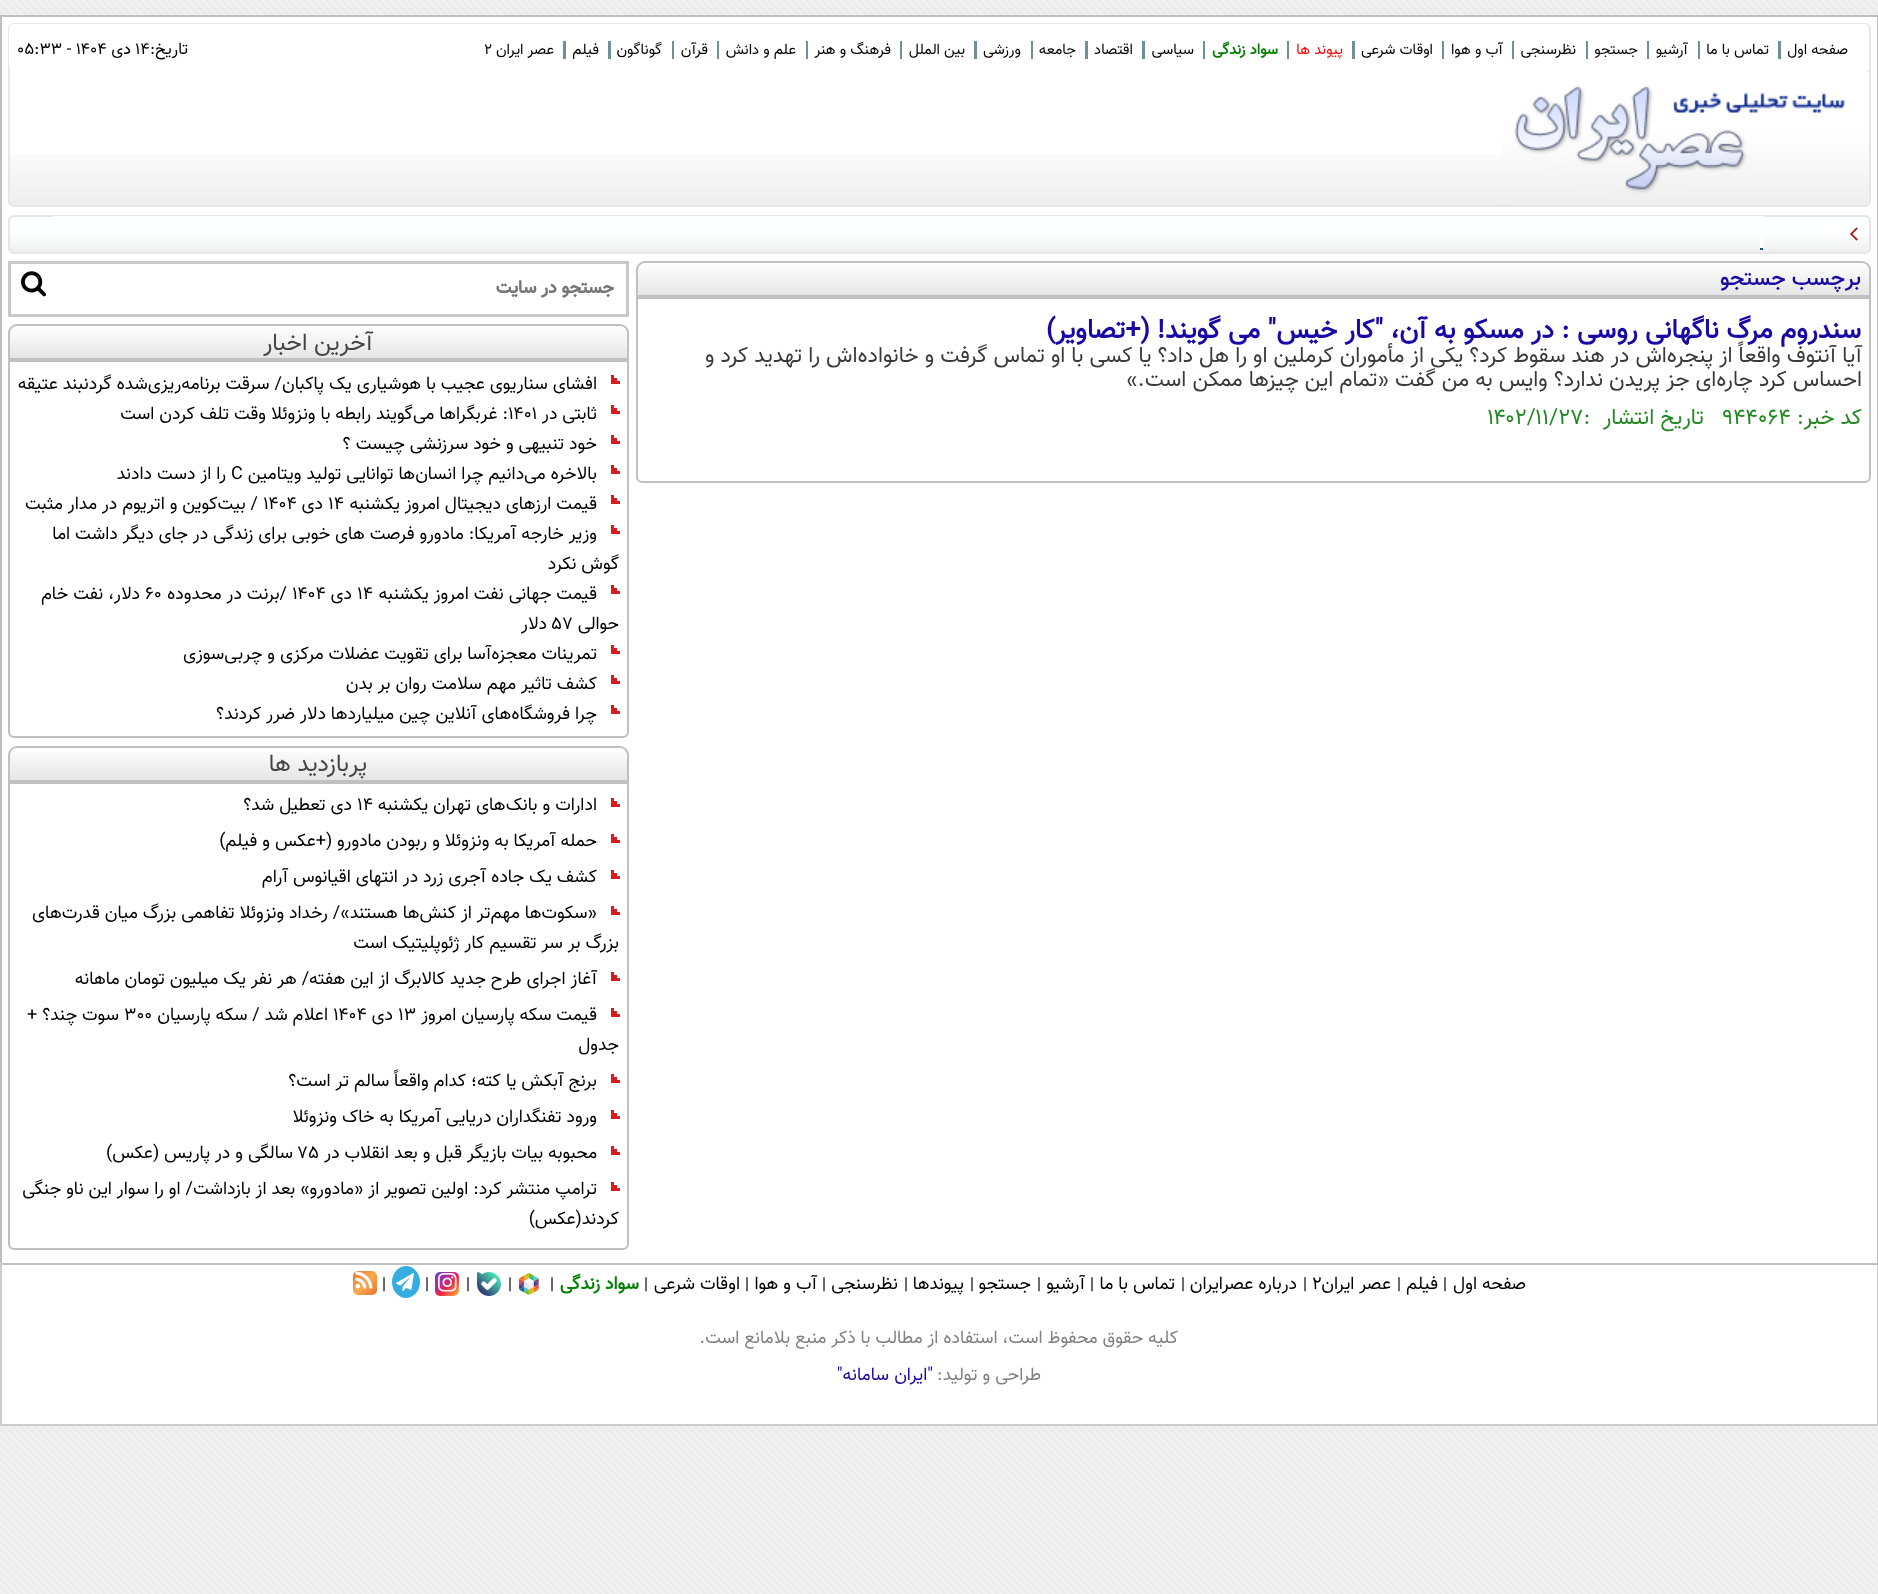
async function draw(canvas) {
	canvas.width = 1878;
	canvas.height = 1594;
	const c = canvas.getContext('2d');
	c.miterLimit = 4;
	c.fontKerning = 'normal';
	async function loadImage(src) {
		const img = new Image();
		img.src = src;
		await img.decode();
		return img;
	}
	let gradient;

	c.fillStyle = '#fff';
	c.fillRect(0, 0, 1878, 1594);
	c.drawImage(await loadImage('img1.png'), 0, 0, 1878, 1594);
	for (const [x, y, w, h, color] of [
		[2, 17, 1875, 1246, '#fff'],
		[0, 15, 1878, 2, '#c0c0c0'],
		[1877, 15, 1, 1248, '#c0c0c0'],
		[0, 15, 2, 1248, '#c0c0c0'],
	]) {
		c.fillStyle = color;
		c.fillRect(x, y, w, h);
	}
	c.drawImage(await loadImage('img2.png'), 7, 155, 1864, 51);
	c.beginPath();
	c.roundRect(9, 24, 1861, 182, 5);
	c.strokeStyle = '#e6e6e6';
	c.lineWidth = 2;
	c.stroke();
	c.fillStyle = '#fff';
	c.beginPath();
	c.roundRect(9, 24, 1860, 47, 5);
	c.fill();
	c.direction = 'rtl';
	c.font = '15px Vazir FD';
	c.fillStyle = '#000';
	c.fillText('صفحه اول', 1848, 54);
	c.fillStyle = '#6c919b';
	c.fillRect(1778, 41, 3, 18);
	c.fillStyle = '#000';
	c.fillText('تماس با ما', 1769, 54);
	c.fillStyle = '#6c919b';
	c.fillRect(1698, 41, 2, 18);
	c.fillStyle = '#000';
	c.fillText('آرشیو', 1688, 54);
	c.fillStyle = '#6c919b';
	c.fillRect(1647, 41, 2, 18);
	c.fillStyle = '#000';
	c.fillText('جستجو', 1638, 54);
	c.fillStyle = '#6c919b';
	c.fillRect(1586, 41, 2, 18);
	c.fillStyle = '#000';
	c.fillText('نظرسنجی', 1576, 54);
	c.fillStyle = '#6c919b';
	c.fillRect(1512, 41, 2, 18);
	c.fillStyle = '#000';
	c.fillText('آب و هوا', 1503, 54);
	c.fillStyle = '#6c919b';
	c.fillRect(1442, 41, 2, 18);
	c.fillStyle = '#000';
	c.fillText('اوقات شرعی', 1433, 54);
	c.fillStyle = '#6c919b';
	c.fillRect(1352, 41, 3, 18);
	c.fillStyle = '#f00';
	c.fillText('پیوند ها', 1343, 54);
	c.fillStyle = '#6c919b';
	c.fillRect(1287, 41, 2, 18);
	c.font = 'bold 15px Vazir FD';
	c.fillStyle = '#008000';
	c.fillText('سواد زندگی', 1278, 54);
	c.fillStyle = '#6c919b';
	c.fillRect(1203, 41, 2, 18);
	c.font = '15px Vazir FD';
	c.fillStyle = '#000';
	c.fillText('سیاسی', 1194, 54);
	c.fillStyle = '#6c919b';
	c.fillRect(1142, 41, 3, 18);
	c.fillStyle = '#000';
	c.fillText('اقتصاد', 1133, 54);
	c.fillStyle = '#6c919b';
	c.fillRect(1085, 41, 3, 18);
	c.fillStyle = '#000';
	c.fillText('جامعه', 1076, 54);
	c.fillStyle = '#6c919b';
	c.fillRect(1031, 41, 2, 18);
	c.fillStyle = '#000';
	c.fillText('ورزشی', 1021, 54);
	c.fillStyle = '#6c919b';
	c.fillRect(974, 41, 3, 18);
	c.fillStyle = '#000';
	c.fillText('بین الملل', 965, 54);
	c.fillStyle = '#6c919b';
	c.fillRect(900, 41, 2, 18);
	c.fillStyle = '#000';
	c.fillText('فرهنگ و هنر', 891, 54);
	c.fillStyle = '#6c919b';
	c.fillRect(806, 41, 2, 18);
	c.fillStyle = '#000';
	c.fillText('علم و دانش', 796, 54);
	c.fillStyle = '#6c919b';
	c.fillRect(717, 41, 2, 18);
	c.fillStyle = '#000';
	c.fillText('قرآن', 708, 54);
	c.fillStyle = '#6c919b';
	c.fillRect(672, 41, 2, 18);
	c.fillStyle = '#000';
	c.fillText('گوناگون', 662, 54);
	c.fillStyle = '#6c919b';
	c.fillRect(608, 41, 3, 18);
	c.fillStyle = '#000';
	c.fillText('فیلم', 599, 54);
	c.fillStyle = '#6c919b';
	c.fillRect(563, 41, 3, 18);
	c.fillStyle = '#000';
	c.fillText('عصر ایران', 554, 54);
	c.direction = 'ltr';
	c.fillText('2', 484, 54);
	c.direction = 'rtl';
	c.font = '16.5px Vazir FD';
	c.fillText('تاریخ:', 188, 54);
	c.direction = 'ltr';
	c.fillText('۱۴', 135, 54);
	c.direction = 'rtl';
	c.fillText('دی', 131, 54);
	c.direction = 'ltr';
	c.fillText('۰۵:۳۳ - ۱۴۰۴', 17, 54);
	c.drawImage(await loadImage('img3.png'), 1502, 70, 367, 135);
	c.save();
	c.beginPath();
	c.roundRect(8, 215, 1863, 39, 6);
	c.clip();
	gradient = c.createLinearGradient(939, 216, 939, 252);
	gradient.addColorStop(0, '#feffff');
	gradient.addColorStop(0.48, '#feffff');
	gradient.addColorStop(1, '#efefef');
	c.fillStyle = gradient;
	c.fillRect(8, 216, 1863, 36);
	c.restore();
	c.beginPath();
	c.roundRect(9, 216, 1861, 37, 5);
	c.stroke();
	c.drawImage(await loadImage('img4.png'), 1850, 227, 8, 14);
	gradient = c.createLinearGradient(866, 216, 866, 252);
	gradient.addColorStop(0, '#feffff');
	gradient.addColorStop(0.48, '#feffff');
	gradient.addColorStop(1, '#efefef');
	c.fillStyle = gradient;
	c.fillRect(53, 216, 1711, 1);
	c.fillStyle = '#fff';
	c.fillRect(1760, 235, 3, 14);
	c.fillStyle = '#1f527b';
	c.fillRect(1760, 248, 3, 2);
	c.save();
	c.beginPath();
	c.roundRect(636, 261, 1235, 36, [9, 9, 0, 0]);
	c.clip();
	gradient = c.createLinearGradient(1253, 262, 1253, 296);
	gradient.addColorStop(0, '#fff');
	gradient.addColorStop(1, '#e5e5e5');
	c.fillStyle = gradient;
	c.fillRect(636, 263, 1235, 32);
	c.restore();
	c.beginPath();
	c.roundRect(637, 262, 1233, 34, [8, 8, 0, 0]);
	c.strokeStyle = '#c0c0c0';
	c.stroke();
	c.direction = 'rtl';
	c.font = '500 22.5px Vazir FD';
	c.fillStyle = '#1809a6';
	c.fillText('برچسب جستجو', 1861, 285);
	c.beginPath();
	c.roundRect(637, 298, 1233, 184, [0, 0, 5, 5]);
	c.stroke();
	c.font = 'bold 27px Vazir FD';
	c.fillText('سندروم مرگ ناگهانی روسی : در مسکو به آن، "کار خیس" می گویند!', 1861, 338);
	c.fillText('(+تصاویر)', 1150, 338);
	c.font = '22px Vazir FD';
	c.fillStyle = '#3a3a3d';
	c.fillText('آیا آنتوف واقعاً از پنجره‌اش در هند سقوط کرد؟ یکی از مأموران کرملین او را هل داد؟ یا کسی با او تماس گرفت و خانواده‌اش را تهدید کرد و', 1862, 362);
	c.fillText('احساس کرد چاره‌ای جز پریدن ندارد؟ وایس به من گفت «تمام این چیزها ممکن است.»', 1862, 386);
	c.fillStyle = '#282';
	c.fillText('کد خبر:', 1862, 424);
	c.direction = 'ltr';
	c.fillText('۹۴۴۰۶۴', 1722, 424);
	c.direction = 'rtl';
	c.fillText('تاریخ انتشار', 1704, 424);
	c.direction = 'ltr';
	c.fillText('۱۴۰۲/۱۱/۲۷:', 1487, 424);
	c.strokeStyle = '#c8c8c8';
	c.lineWidth = 3;
	c.strokeRect(9.5, 262.5, 618, 53);
	c.direction = 'rtl';
	c.font = 'bold 18px "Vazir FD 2"';
	c.fillStyle = '#757575';
	c.fillText('جستجو در سایت', 614, 293);
	c.drawImage(await loadImage('img5.png'), 21, 271, 26, 26);
	c.save();
	c.beginPath();
	c.roundRect(8, 324, 621, 36, [9, 9, 0, 0]);
	c.clip();
	gradient = c.createLinearGradient(318, 325, 318, 359);
	gradient.addColorStop(0, '#fff');
	gradient.addColorStop(1, '#e5e5e5');
	c.fillStyle = gradient;
	c.fillRect(8, 326, 621, 32);
	c.restore();
	c.beginPath();
	c.roundRect(9, 325, 619, 34, [8, 8, 0, 0]);
	c.strokeStyle = '#c0c0c0';
	c.lineWidth = 2;
	c.stroke();
	c.font = '24px Vazir FD';
	c.fillStyle = '#444';
	c.fillText('آخرین اخبار', 373, 350);
	c.beginPath();
	c.roundRect(9, 361, 619, 376, [0, 0, 5, 5]);
	c.stroke();
	for (const [x, y, w, h, color] of [
		[611, 375, 9, 9, '#dc191d'],
		[614, 375, 6, 3, '#fff'],
		[617, 378, 3, 3, '#fff'],
	]) {
		c.fillStyle = color;
		c.fillRect(x, y, w, h);
	}
	c.font = '18px Vazir FD';
	c.fillStyle = '#000';
	c.fillText('افشای سناریوی عجیب با هوشیاری یک پاکبان/ سرقت برنامه‌ریزی‌شده گردنبند عتیقه', 597, 389);
	for (const [x, y, w, h, color] of [
		[611, 405, 9, 9, '#dc191d'],
		[614, 405, 6, 3, '#fff'],
		[617, 408, 3, 3, '#fff'],
	]) {
		c.fillStyle = color;
		c.fillRect(x, y, w, h);
	}
	c.fillStyle = '#000';
	c.fillText('ثابتی در', 597, 419);
	c.direction = 'ltr';
	c.fillText('۱۴۰۱', 508, 419);
	c.direction = 'rtl';
	c.fillText(': غربگرا‌ها می‌گویند رابطه با ونزوئلا وقت تلف کردن است', 508, 419);
	for (const [x, y, w, h, color] of [
		[611, 435, 9, 9, '#dc191d'],
		[614, 435, 6, 3, '#fff'],
		[617, 438, 3, 3, '#fff'],
	]) {
		c.fillStyle = color;
		c.fillRect(x, y, w, h);
	}
	c.fillStyle = '#000';
	c.fillText('خود تنبیهی و خود سرزنشی چیست ؟', 597, 449);
	for (const [x, y, w, h, color] of [
		[611, 465, 9, 9, '#dc191d'],
		[614, 465, 6, 3, '#fff'],
		[617, 468, 3, 3, '#fff'],
	]) {
		c.fillStyle = color;
		c.fillRect(x, y, w, h);
	}
	c.fillStyle = '#000';
	c.fillText('بالاخره می‌دانیم چرا انسان‌ها توانایی تولید ویتامین', 597, 479);
	c.direction = 'ltr';
	c.fillText('C', 231, 479);
	c.direction = 'rtl';
	c.fillText('را از دست دادند', 226, 479);
	for (const [x, y, w, h, color] of [
		[611, 495, 9, 9, '#dc191d'],
		[614, 495, 6, 3, '#fff'],
		[617, 498, 3, 3, '#fff'],
	]) {
		c.fillStyle = color;
		c.fillRect(x, y, w, h);
	}
	c.fillStyle = '#000';
	c.fillText('قیمت ارز‌های دیجیتال امروز یکشنبه', 597, 509);
	c.direction = 'ltr';
	c.fillText('۱۴', 328, 509);
	c.direction = 'rtl';
	c.fillText('دی', 323, 509);
	c.direction = 'ltr';
	c.fillText('۱۴۰۴', 263, 509);
	c.direction = 'rtl';
	c.fillText('/ بیت‌کوین و اتریوم در مدار مثبت', 258, 509);
	for (const [x, y, w, h, color] of [
		[611, 525, 9, 9, '#dc191d'],
		[614, 525, 6, 3, '#fff'],
		[617, 528, 3, 3, '#fff'],
	]) {
		c.fillStyle = color;
		c.fillRect(x, y, w, h);
	}
	c.fillStyle = '#000';
	c.fillText('وزیر خارجه آمریکا: مادورو فرصت های خوبی برای زندگی در جای دیگر داشت اما', 597, 539);
	c.fillText('گوش نکرد', 619, 569);
	for (const [x, y, w, h, color] of [
		[611, 585, 9, 9, '#dc191d'],
		[614, 585, 6, 3, '#fff'],
		[617, 588, 3, 3, '#fff'],
	]) {
		c.fillStyle = color;
		c.fillRect(x, y, w, h);
	}
	c.fillStyle = '#000';
	c.fillText('قیمت جهانی نفت امروز یکشنبه', 597, 599);
	c.direction = 'ltr';
	c.fillText('۱۴', 357, 599);
	c.direction = 'rtl';
	c.fillText('دی', 352, 599);
	c.direction = 'ltr';
	c.fillText('۱۴۰۴', 292, 599);
	c.direction = 'rtl';
	c.fillText('/برنت در محدوده', 287, 599);
	c.direction = 'ltr';
	c.fillText('۶۰', 145, 599);
	c.direction = 'rtl';
	c.fillText('دلار، نفت خام', 140, 599);
	c.fillText('حوالی', 619, 629);
	c.direction = 'ltr';
	c.fillText('۵۷', 552, 629);
	c.direction = 'rtl';
	c.fillText('دلار', 547, 629);
	for (const [x, y, w, h, color] of [
		[611, 645, 9, 9, '#dc191d'],
		[614, 645, 6, 3, '#fff'],
		[617, 648, 3, 3, '#fff'],
	]) {
		c.fillStyle = color;
		c.fillRect(x, y, w, h);
	}
	c.fillStyle = '#000';
	c.fillText('تمرینات معجزه‌آسا برای تقویت عضلات مرکزی و چربی‌سوزی', 597, 659);
	for (const [x, y, w, h, color] of [
		[611, 675, 9, 9, '#dc191d'],
		[614, 675, 6, 3, '#fff'],
		[617, 678, 3, 3, '#fff'],
	]) {
		c.fillStyle = color;
		c.fillRect(x, y, w, h);
	}
	c.fillStyle = '#000';
	c.fillText('کشف تاثیر مهم سلامت روان بر بدن', 597, 689);
	for (const [x, y, w, h, color] of [
		[611, 705, 9, 9, '#dc191d'],
		[614, 705, 6, 3, '#fff'],
		[617, 708, 3, 3, '#fff'],
	]) {
		c.fillStyle = color;
		c.fillRect(x, y, w, h);
	}
	c.fillStyle = '#000';
	c.fillText('چرا فروشگاه‌های آنلاین چین میلیاردها دلار ضرر کردند؟', 597, 719);
	c.save();
	c.beginPath();
	c.roundRect(8, 746, 621, 36, [9, 9, 0, 0]);
	c.clip();
	gradient = c.createLinearGradient(318, 747, 318, 780);
	gradient.addColorStop(0, '#fff');
	gradient.addColorStop(1, '#e5e5e5');
	c.fillStyle = gradient;
	c.fillRect(8, 747, 621, 33);
	c.restore();
	c.beginPath();
	c.roundRect(9, 747, 619, 34, [8, 8, 0, 0]);
	c.stroke();
	c.font = '24px Vazir FD';
	c.fillStyle = '#444';
	c.fillText('پربازدید ها', 367, 771);
	c.beginPath();
	c.roundRect(9, 783, 619, 466, [0, 0, 5, 5]);
	c.stroke();
	for (const [x, y, w, h, color] of [
		[611, 798, 9, 9, '#dc191d'],
		[614, 798, 6, 3, '#fff'],
		[617, 801, 3, 3, '#fff'],
	]) {
		c.fillStyle = color;
		c.fillRect(x, y, w, h);
	}
	c.font = '18px Vazir FD';
	c.fillStyle = '#000';
	c.fillText('ادارات و بانک‌های تهران یکشنبه', 597, 810);
	c.direction = 'ltr';
	c.fillText('۱۴', 357, 810);
	c.direction = 'rtl';
	c.fillText('دی تعطیل شد؟', 352, 810);
	for (const [x, y, w, h, color] of [
		[611, 834, 9, 9, '#dc191d'],
		[614, 834, 6, 3, '#fff'],
		[617, 837, 3, 3, '#fff'],
	]) {
		c.fillStyle = color;
		c.fillRect(x, y, w, h);
	}
	c.fillStyle = '#000';
	c.fillText('حمله آمریکا به ونزوئلا و ربودن مادورو (+عکس و فیلم)', 597, 846);
	for (const [x, y, w, h, color] of [
		[611, 870, 9, 9, '#dc191d'],
		[614, 870, 6, 3, '#fff'],
		[617, 873, 3, 3, '#fff'],
	]) {
		c.fillStyle = color;
		c.fillRect(x, y, w, h);
	}
	c.fillStyle = '#000';
	c.fillText('کشف یک جاده آجری زرد در انتهای اقیانوس آرام', 597, 882);
	for (const [x, y, w, h, color] of [
		[611, 906, 9, 9, '#dc191d'],
		[614, 906, 6, 3, '#fff'],
		[617, 909, 3, 3, '#fff'],
	]) {
		c.fillStyle = color;
		c.fillRect(x, y, w, h);
	}
	c.fillStyle = '#000';
	c.fillText('«سکوت‌ها مهم‌تر از کنش‌ها هستند»/ رخداد ونزوئلا تفاهمی بزرگ میان قدرت‌های', 597, 918);
	c.fillText('بزرگ بر سر تقسیم کار ژئوپلیتیک است', 619, 948);
	for (const [x, y, w, h, color] of [
		[611, 972, 9, 9, '#dc191d'],
		[614, 972, 6, 3, '#fff'],
		[617, 975, 3, 3, '#fff'],
	]) {
		c.fillStyle = color;
		c.fillRect(x, y, w, h);
	}
	c.fillStyle = '#000';
	c.fillText('آغاز اجرای طرح جدید کالابرگ از این هفته/ هر نفر یک میلیون تومان ماهانه', 597, 984);
	for (const [x, y, w, h, color] of [
		[611, 1008, 9, 9, '#dc191d'],
		[614, 1008, 6, 3, '#fff'],
		[617, 1011, 3, 3, '#fff'],
	]) {
		c.fillStyle = color;
		c.fillRect(x, y, w, h);
	}
	c.fillStyle = '#000';
	c.fillText('قیمت سکه پارسیان امروز', 597, 1020);
	c.direction = 'ltr';
	c.fillText('۱۳', 398, 1020);
	c.direction = 'rtl';
	c.fillText('دی', 393, 1020);
	c.direction = 'ltr';
	c.fillText('۱۴۰۴', 333, 1020);
	c.direction = 'rtl';
	c.fillText('اعلام شد / سکه پارسیان', 328, 1020);
	c.direction = 'ltr';
	c.fillText('300', 124, 1020);
	c.direction = 'rtl';
	c.fillText('سوت چند؟ +', 119, 1020);
	c.fillText('جدول', 619, 1050);
	for (const [x, y, w, h, color] of [
		[611, 1074, 9, 9, '#dc191d'],
		[614, 1074, 6, 3, '#fff'],
		[617, 1077, 3, 3, '#fff'],
	]) {
		c.fillStyle = color;
		c.fillRect(x, y, w, h);
	}
	c.fillStyle = '#000';
	c.fillText('برنج آبکش یا کته؛ کدام واقعاً سالم‌ تر است؟', 597, 1086);
	for (const [x, y, w, h, color] of [
		[611, 1110, 9, 9, '#dc191d'],
		[614, 1110, 6, 3, '#fff'],
		[617, 1113, 3, 3, '#fff'],
	]) {
		c.fillStyle = color;
		c.fillRect(x, y, w, h);
	}
	c.fillStyle = '#000';
	c.fillText('ورود تفنگداران دریایی آمریکا به خاک ونزوئلا', 597, 1122);
	for (const [x, y, w, h, color] of [
		[611, 1146, 9, 9, '#dc191d'],
		[614, 1146, 6, 3, '#fff'],
		[617, 1149, 3, 3, '#fff'],
	]) {
		c.fillStyle = color;
		c.fillRect(x, y, w, h);
	}
	c.fillStyle = '#000';
	c.fillText('محبوبه بیات بازیگر قبل و بعد انقلاب در', 597, 1158);
	c.direction = 'ltr';
	c.fillText('75', 297, 1158);
	c.direction = 'rtl';
	c.fillText('سالگی و در پاریس (عکس)', 293, 1158);
	for (const [x, y, w, h, color] of [
		[611, 1182, 9, 9, '#dc191d'],
		[614, 1182, 6, 3, '#fff'],
		[617, 1185, 3, 3, '#fff'],
	]) {
		c.fillStyle = color;
		c.fillRect(x, y, w, h);
	}
	c.fillStyle = '#000';
	c.fillText('ترامپ منتشر کرد: اولین تصویر از «مادورو» بعد از بازداشت/ او را سوار این ناو جنگی', 597, 1194);
	c.fillText('کردند(عکس)', 619, 1224);
	for (const [x, y, w, h, color] of [
		[2, 1265, 1875, 159, '#fff'],
		[1877, 1263, 1, 162, '#ccc'],
		[0, 1424, 1878, 2, '#ccc'],
		[0, 1263, 2, 162, '#ccc'],
		[2, 1263, 1875, 2, '#c0c0c0'],
	]) {
		c.fillStyle = color;
		c.fillRect(x, y, w, h);
	}
	c.fillStyle = '#000';
	c.fillText('صفحه اول', 1526, 1289);
	c.direction = 'ltr';
	c.font = '16.5px Vazir FD';
	c.fillText('|', 1443, 1289);
	c.direction = 'rtl';
	c.font = '18px Vazir FD';
	c.fillText('فیلم', 1438, 1289);
	c.direction = 'ltr';
	c.font = '16.5px Vazir FD';
	c.fillText('|', 1397, 1289);
	c.direction = 'rtl';
	c.font = '18px Vazir FD';
	c.fillText('عصر ایران', 1391, 1289);
	c.direction = 'ltr';
	c.fillText('۲', 1312, 1289);
	c.font = '16.5px Vazir FD';
	c.fillText('|', 1303, 1289);
	c.direction = 'rtl';
	c.font = '18px Vazir FD';
	c.fillText('درباره عصرایران', 1297, 1289);
	c.direction = 'ltr';
	c.font = '16.5px Vazir FD';
	c.fillText('|', 1181, 1289);
	c.direction = 'rtl';
	c.font = '18px Vazir FD';
	c.fillText('تماس با ما', 1175, 1289);
	c.direction = 'ltr';
	c.font = '16.5px Vazir FD';
	c.fillText('|', 1090, 1289);
	c.direction = 'rtl';
	c.font = '18px Vazir FD';
	c.fillText('آرشیو', 1085, 1289);
	c.direction = 'ltr';
	c.font = '16.5px Vazir FD';
	c.fillText('|', 1037, 1289);
	c.direction = 'rtl';
	c.font = '18px Vazir FD';
	c.fillText('جستجو', 1031, 1289);
	c.direction = 'ltr';
	c.font = '16.5px Vazir FD';
	c.fillText('|', 970, 1289);
	c.direction = 'rtl';
	c.font = '18px Vazir FD';
	c.fillText('پیوندها', 964, 1289);
	c.direction = 'ltr';
	c.font = '16.5px Vazir FD';
	c.fillText('|', 904, 1289);
	c.direction = 'rtl';
	c.font = '18px Vazir FD';
	c.fillText('نظرسنجی', 898, 1289);
	c.direction = 'ltr';
	c.font = '16.5px Vazir FD';
	c.fillText('|', 822, 1289);
	c.direction = 'rtl';
	c.font = '18px Vazir FD';
	c.fillText('آب و هوا', 817, 1289);
	c.direction = 'ltr';
	c.font = '16.5px Vazir FD';
	c.fillText('|', 745, 1289);
	c.direction = 'rtl';
	c.font = '18px Vazir FD';
	c.fillText('اوقات شرعی', 740, 1289);
	c.direction = 'ltr';
	c.font = '16.5px Vazir FD';
	c.fillText('|', 644, 1289);
	c.direction = 'rtl';
	c.font = 'bold 18px Vazir FD';
	c.fillStyle = '#008000';
	c.fillText('سواد زندگی', 639, 1289);
	c.direction = 'ltr';
	c.font = '16.5px Vazir FD';
	c.fillStyle = '#000';
	c.fillText('|', 550, 1289);
	c.drawImage(await loadImage('img6.png'), 519, 1273, 20, 22);
	c.fillText('|', 508, 1289);
	c.drawImage(await loadImage('img7.png'), 477, 1272, 24, 24);
	c.fillText('|', 466, 1289);
	gradient = c.createLinearGradient(435, 1272, 459, 1296);
	gradient.addColorStop(0, '#5541d6');
	gradient.addColorStop(0.4, '#c32694');
	gradient.addColorStop(0.56, '#f01f41');
	gradient.addColorStop(1, '#fbc04c');
	c.fillStyle = gradient;
	c.beginPath();
	c.roundRect(435, 1272, 24, 24, 5);
	c.fill();
	c.drawImage(await loadImage('img8.png'), 438, 1273, 19, 19);
	c.fillStyle = '#000';
	c.fillText('|', 425, 1289);
	c.fillStyle = '#36ade1';
	c.beginPath();
	c.ellipse(406, 1282, 14, 16, 0, 0, 2 * Math.PI);
	c.fill();
	c.drawImage(await loadImage('img9.png'), 396, 1273, 18, 18);
	c.fillStyle = '#000';
	c.fillText('|', 382, 1289);
	gradient = c.createLinearGradient(353, 1271, 377, 1295);
	gradient.addColorStop(0, '#e5742e');
	gradient.addColorStop(0.5, '#fba952');
	gradient.addColorStop(1, '#e5742e');
	c.fillStyle = gradient;
	c.beginPath();
	c.roundRect(353, 1271, 24, 24, 5);
	c.fill();
	c.drawImage(await loadImage('img10.png'), 355, 1271, 18, 18);
	c.direction = 'rtl';
	c.font = '18px Vazir FD';
	c.fillStyle = '#808080';
	c.fillText('كليه حقوق محفوظ است، استفاده از مطالب با ذكر منبع بلامانع است.', 1178, 1343);
	c.fillText('طراحی و تولید:', 1041, 1380);
	c.fillStyle = '#1809a6';
	c.fillText('"ایران', 933, 1380);
	c.fillText('سامانه"', 889, 1380);
}

draw(document.querySelector('canvas'));
